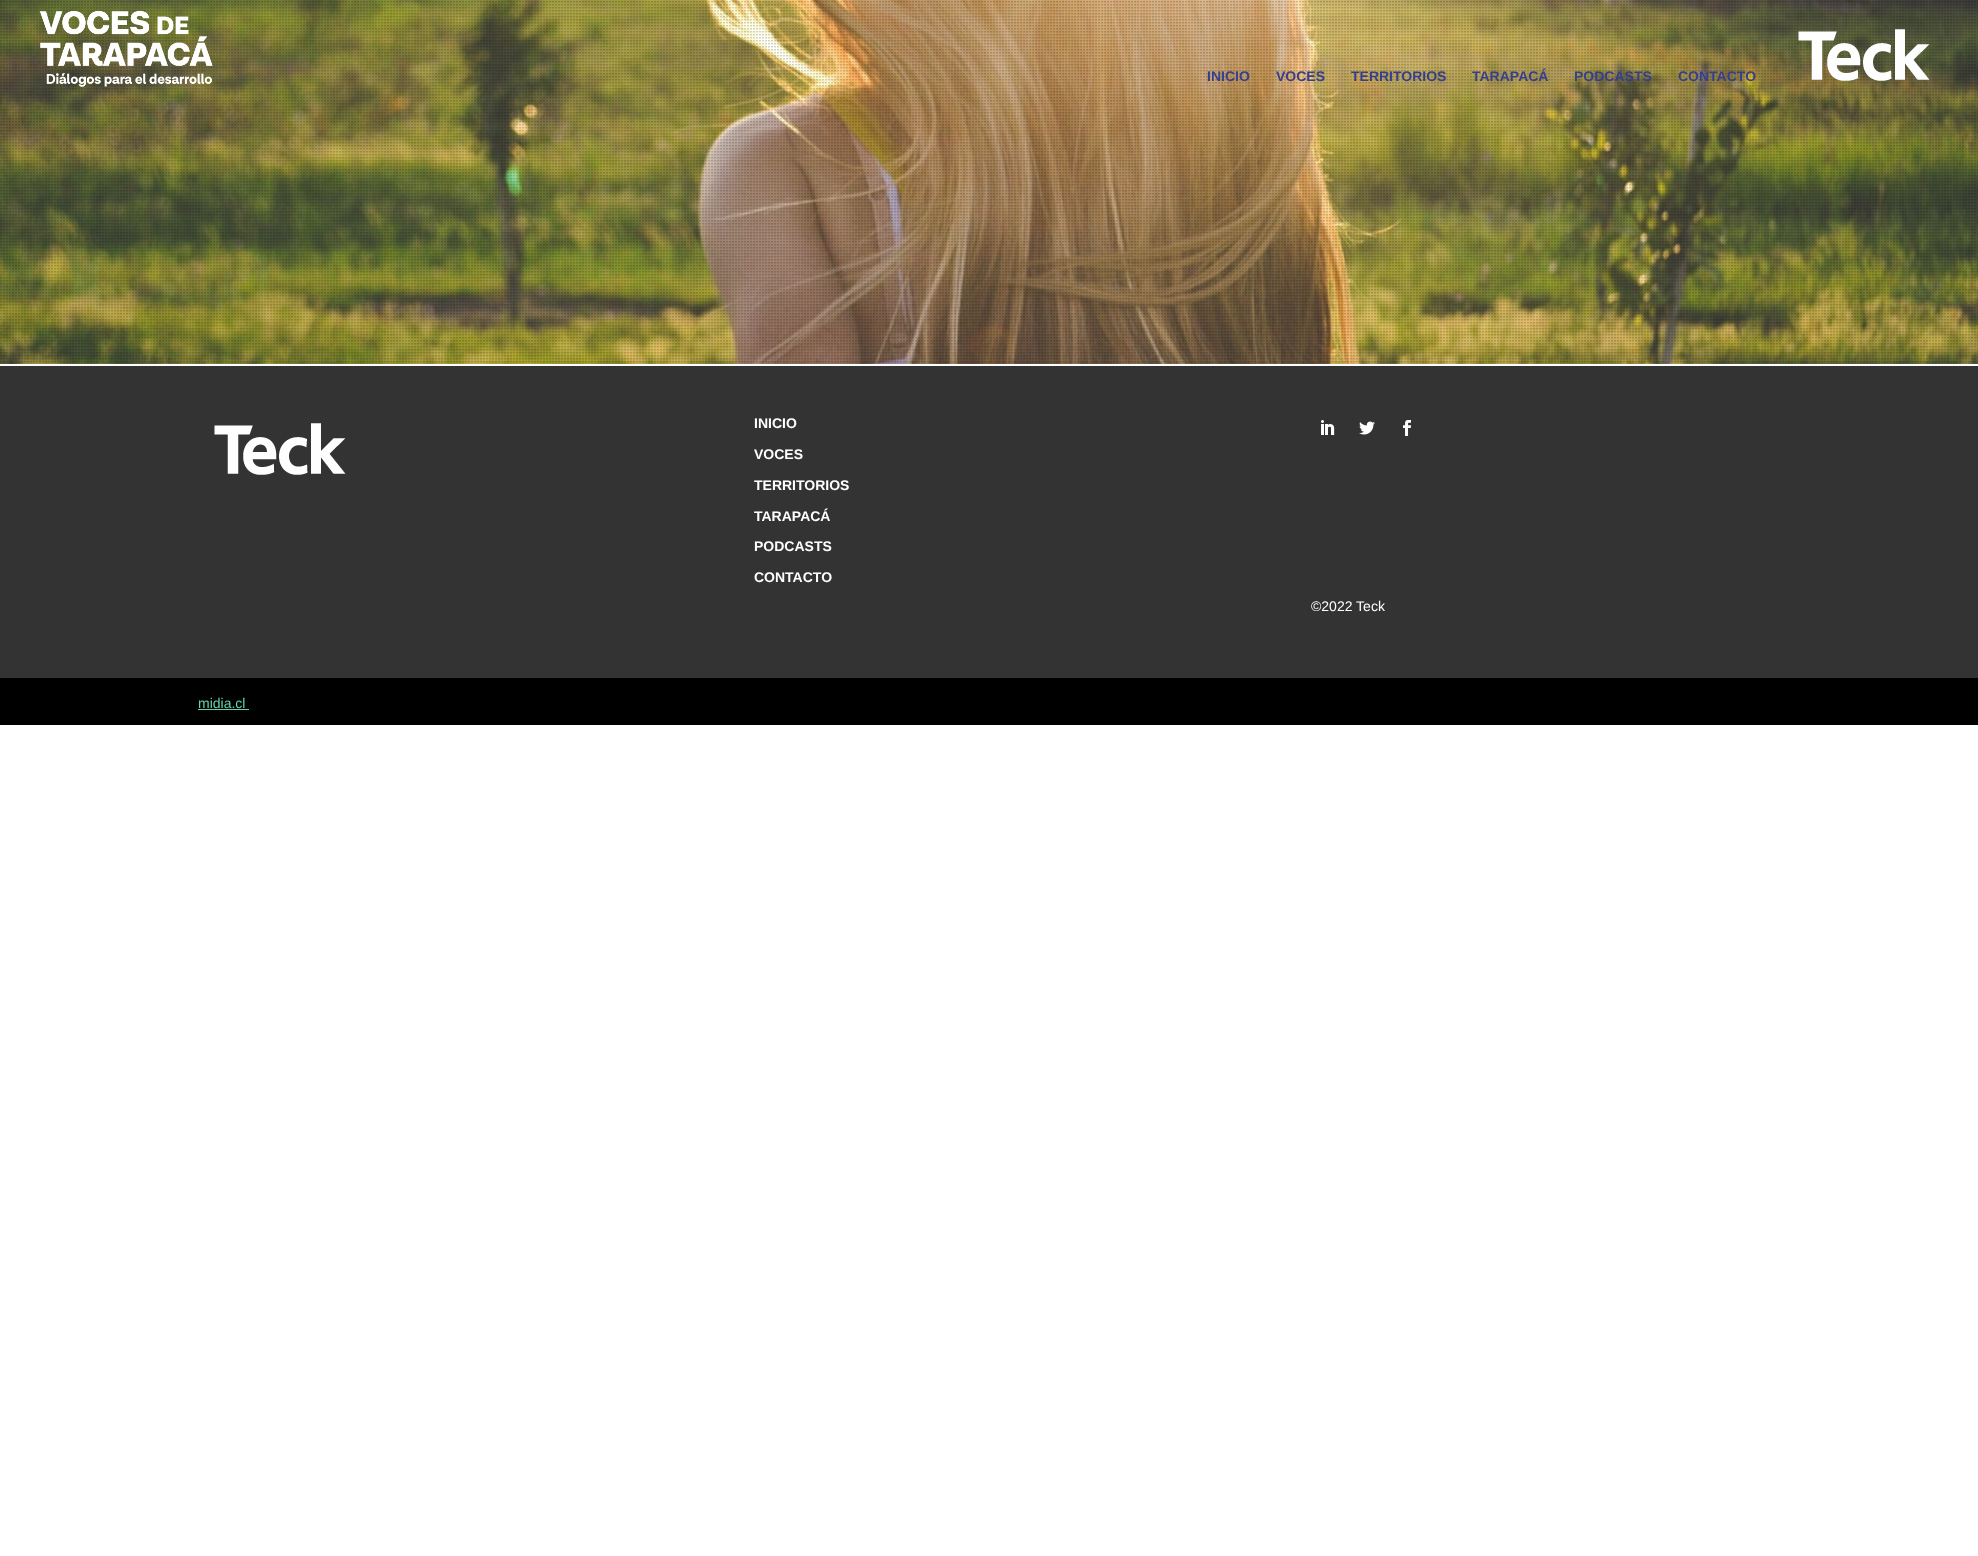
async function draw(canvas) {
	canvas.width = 1978;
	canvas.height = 1556;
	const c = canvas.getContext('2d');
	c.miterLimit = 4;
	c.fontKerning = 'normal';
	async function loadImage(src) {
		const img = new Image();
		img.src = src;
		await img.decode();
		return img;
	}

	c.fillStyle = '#fff';
	c.fillRect(0, 0, 1978, 1556);
	c.drawImage(await loadImage('img3.png'), 0, 0, 1978, 364);
	c.drawImage(await loadImage('img4.png'), 0, 1, 1978, 362);
	c.drawImage(await loadImage('img1.png'), 39, 10, 174, 77);
	c.font = 'bold 14px Liberation Sans';
	c.fillStyle = '#353f8f';
	for (const [text, x, y] of [
		['INICIO', 1207, 81],
		['VOCES', 1276, 81],
		['TERRITORIOS', 1351, 81],
		['TARAPACÁ', 1472, 81],
		['PODCASTS', 1574, 81],
		['CONTACTO', 1678, 81],
	]) {
		c.fillText(text, x, y);
	}
	c.drawImage(await loadImage('img2.png'), 1798, 29, 132, 52);
	c.fillStyle = '#333';
	c.fillRect(0, 366, 1978, 312);
	c.drawImage(await loadImage('img5.png'), 214, 423, 132, 52);
	c.fillStyle = '#fff';
	for (const [text, x, y] of [
		['INICIO', 754, 428],
		['VOCES', 754, 459],
		['TERRITORIOS', 754, 490],
		['TARAPACÁ', 754, 521],
		['PODCASTS', 754, 551],
		['CONTACTO', 754, 582],
	]) {
		c.fillText(text, x, y);
	}
	c.drawImage(await loadImage('img6.png'), 1321, 420, 14, 15);
	c.drawImage(await loadImage('img7.png'), 1359, 421, 16, 14);
	c.drawImage(await loadImage('img8.png'), 1403, 420, 8, 16);
	c.font = '14px Liberation Sans';
	c.fillText('©2022 Teck', 1311, 611);
	c.fillStyle = '#000';
	c.fillRect(0, 678, 1978, 47);
	c.fillStyle = '#61d3af';
	c.fillText('midia.cl', 198, 708);
	c.fillRect(198, 709, 51, 1);
}

draw(document.querySelector('canvas'));
